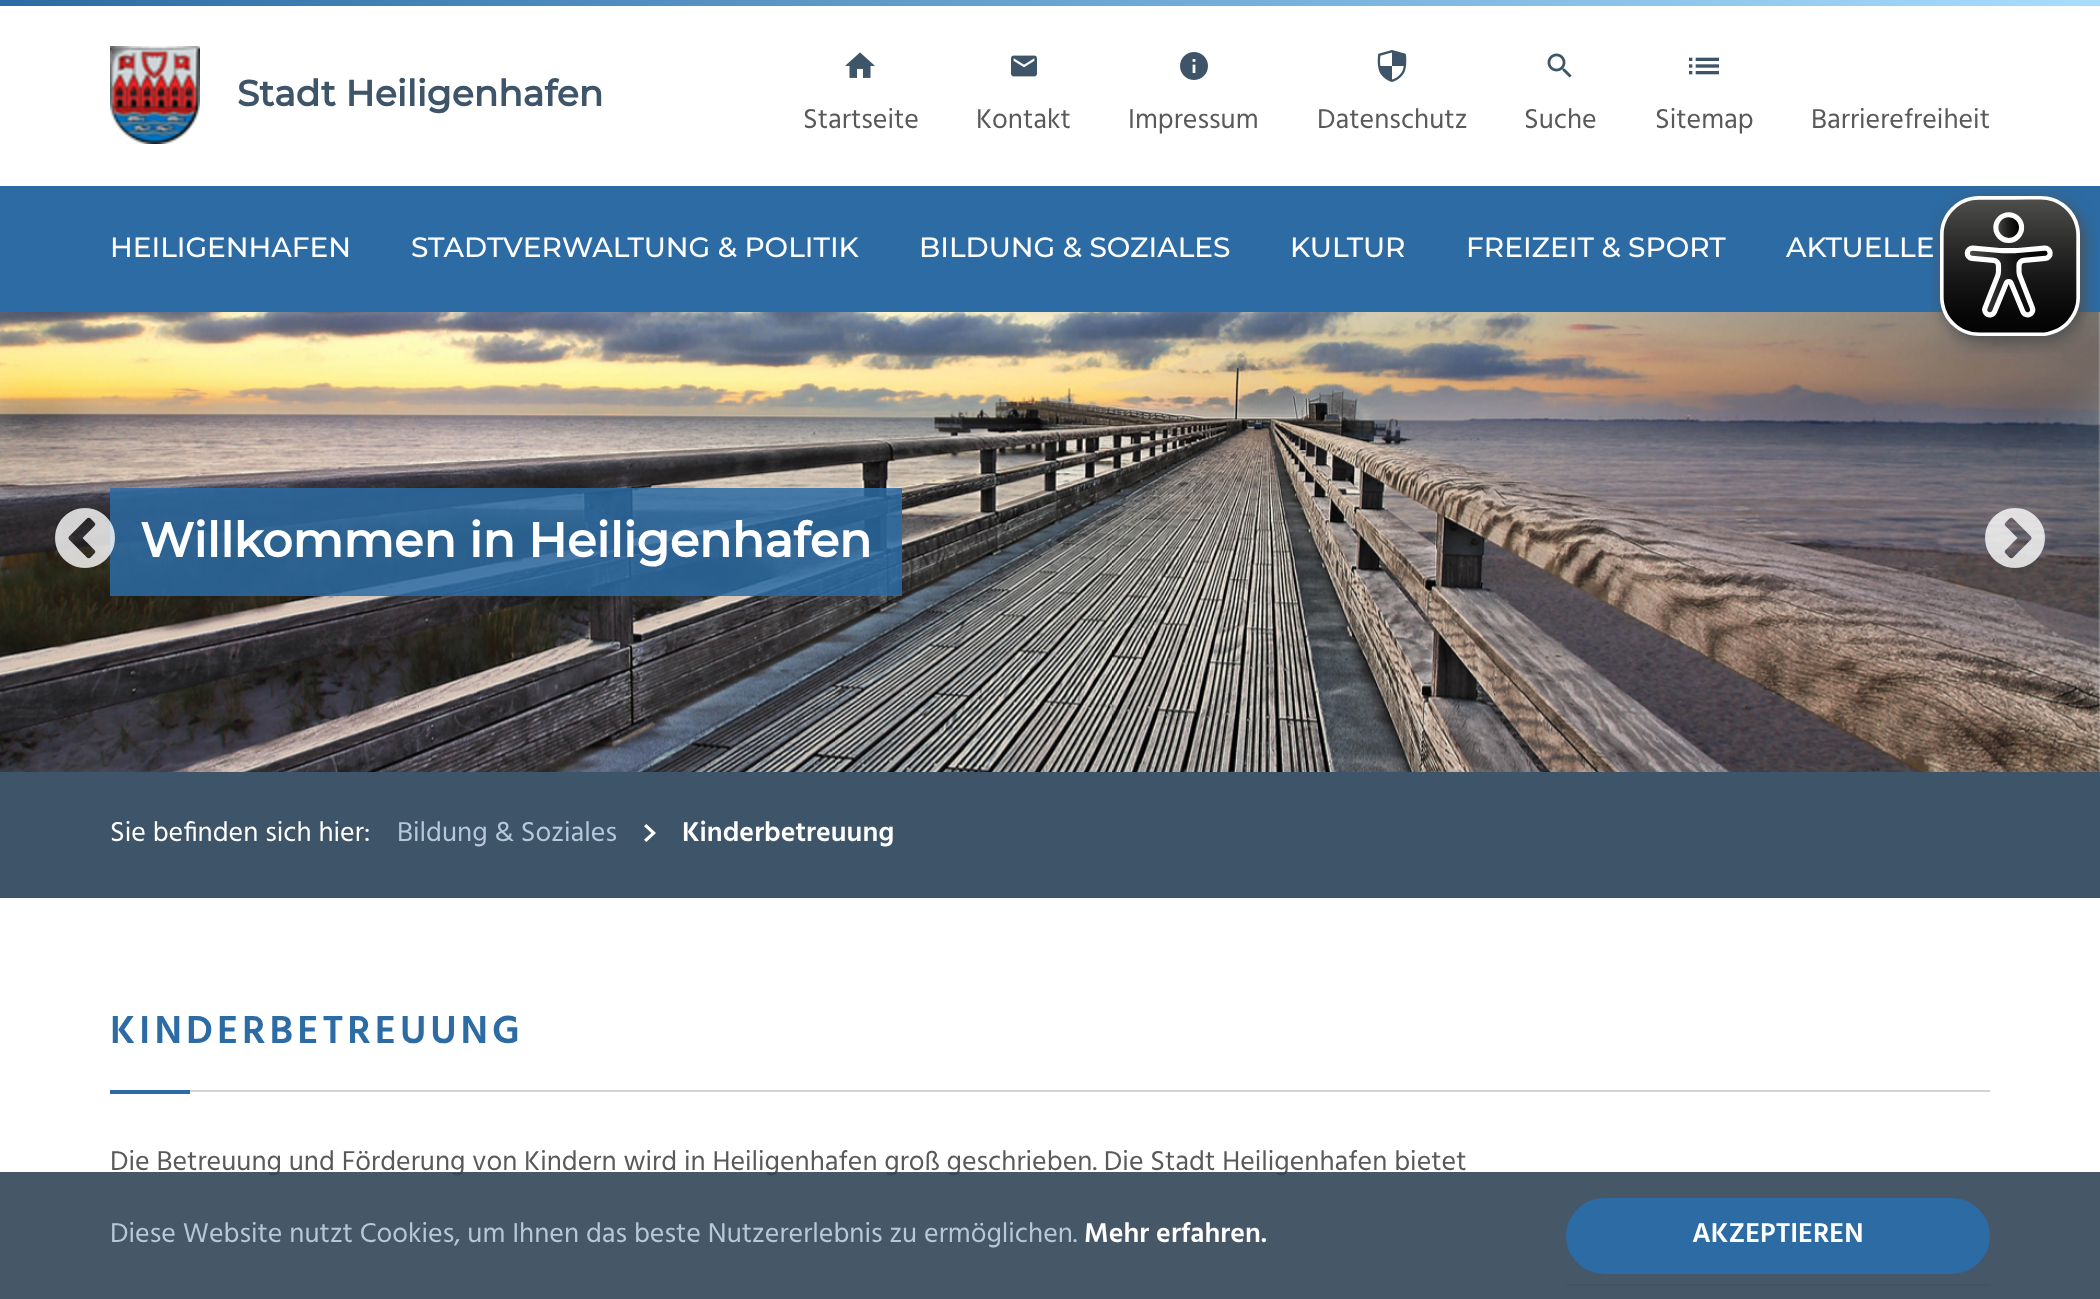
async function draw(canvas) {
	canvas.width = 2100;
	canvas.height = 1299;
	const c = canvas.getContext('2d');
	c.miterLimit = 4;
	c.fontKerning = 'normal';
	async function loadImage(src) {
		const img = new Image();
		img.src = src;
		await img.decode();
		return img;
	}
	let gradient;

	c.fillStyle = '#3e5468';
	c.fillRect(0, 0, 2100, 1299);
	gradient = c.createLinearGradient(0, 3, 2100, 3);
	gradient.addColorStop(0, '#2c6ba3');
	gradient.addColorStop(1, '#a8ddff');
	c.fillStyle = gradient;
	c.fillRect(0, 0, 2100, 6);
	c.fillStyle = '#fff';
	c.fillRect(0, 6, 2100, 180);
	c.drawImage(await loadImage('img1.png'), 110, 46, 90, 98);
	c.font = 'bold 36px Montserrat';
	c.fillStyle = '#3e5468';
	c.fillText('Stadt Heiligenhafen', 237, 106);
	c.drawImage(await loadImage('img2.png'), 845, 52, 30, 26);
	c.font = '28px Hind';
	c.fillStyle = '#595959';
	c.fillText('Startseite', 803, 128);
	c.drawImage(await loadImage('img3.png'), 1011, 55, 26, 22);
	c.fillText('Kontakt', 976, 128);
	c.drawImage(await loadImage('img4.png'), 1180, 52, 28, 28);
	c.fillText('Impressum', 1128, 128);
	c.drawImage(await loadImage('img5.png'), 1377, 50, 30, 32);
	c.fillText('Datenschutz', 1317, 128);
	c.drawImage(await loadImage('img6.png'), 1547, 53, 25, 25);
	c.fillText('Suche', 1524, 128);
	c.drawImage(await loadImage('img7.png'), 1689, 57, 30, 18);
	c.fillText('Sitemap', 1655, 128);
	c.fillText('Barrierefreiheit', 1811, 128);
	c.fillStyle = '#2c6ba3';
	c.fillRect(0, 186, 2100, 126);
	c.font = '100 28px Montserrat';
	c.fillStyle = '#fff';
	for (const [text, x, y] of [
		['HEILIGENHAFEN', 110, 257],
		['STADTVERWALTUNG & POLITIK', 411, 257],
		['BILDUNG & SOZIALES', 919, 257],
		['KULTUR', 1290, 257],
		['FREIZEIT & SPORT', 1466, 257],
		['AKTUELLE', 1786, 257],
	]) {
		c.fillText(text, x, y);
	}
	c.drawImage(await loadImage('img10.png'), 0, 312, 2100, 460);
	c.drawImage(await loadImage('img8.png'), 1930, 189, 167, 164);
	c.fillStyle = '#2c6ba3d9';
	c.fillRect(110, 488, 792, 108);
	c.drawImage(await loadImage('img9.png'), 55, 508, 60, 60);
	c.font = 'bold 48px Montserrat';
	c.fillStyle = '#fff';
	c.fillText('Willkommen in Heiligenhafen', 140, 557);
	c.drawImage(await loadImage('img11.png'), 1985, 508, 60, 60);
	c.font = '28px Hind';
	c.fillText('Sie befinden sich hier:', 110, 841);
	c.fillStyle = '#b6c8da';
	c.fillText('Bildung & Soziales', 397, 841);
	c.drawImage(await loadImage('img12.png'), 644, 824, 12, 18);
	c.font = '600 28px Hind';
	c.fillStyle = '#fff';
	c.fillText('Kinderbetreuung', 682, 841);
	c.fillRect(0, 898, 2100, 401);
	c.fillStyle = '#d5d4d4';
	c.fillRect(190, 1090, 1800, 2);
	c.letterSpacing = '4px';
	c.font = '600 40px Hind';
	c.fillStyle = '#2c6ba3';
	c.fillText('KINDERBETREUUNG', 110, 1043);
	c.fillRect(110, 1090, 80, 4);
	c.letterSpacing = '0px';
	c.font = '28px Hind';
	c.fillStyle = '#595959';
	c.fillText('Die Betreuung und Förderung von Kindern wird in Heiligenhafen groß geschrieben. Die Stadt Heiligenhafen bietet', 110, 1170);
	c.fillStyle = '#d5d4d4';
	c.fillRect(1566, 1284, 424, 2);
	c.fillStyle = '#324557e6';
	c.fillRect(0, 1172, 2100, 127);
	c.fillStyle = '#b6c8da';
	c.fillText('Diese Website nutzt Cookies, um Ihnen das beste Nutzererlebnis zu ermöglichen.', 110, 1242);
	c.font = '600 28px Hind';
	c.fillStyle = '#fff';
	c.fillText('Mehr erfahren.', 1084, 1242);
	c.fillStyle = '#2c6ba3';
	c.beginPath();
	c.roundRect(1567, 1199, 422, 74, 37);
	c.fill();
	c.strokeStyle = '#2c6ba3';
	c.lineWidth = 2;
	c.stroke();
	c.fillStyle = '#fff';
	c.fillText('AKZEPTIEREN', 1692, 1242);
}

draw(document.querySelector('canvas'));
